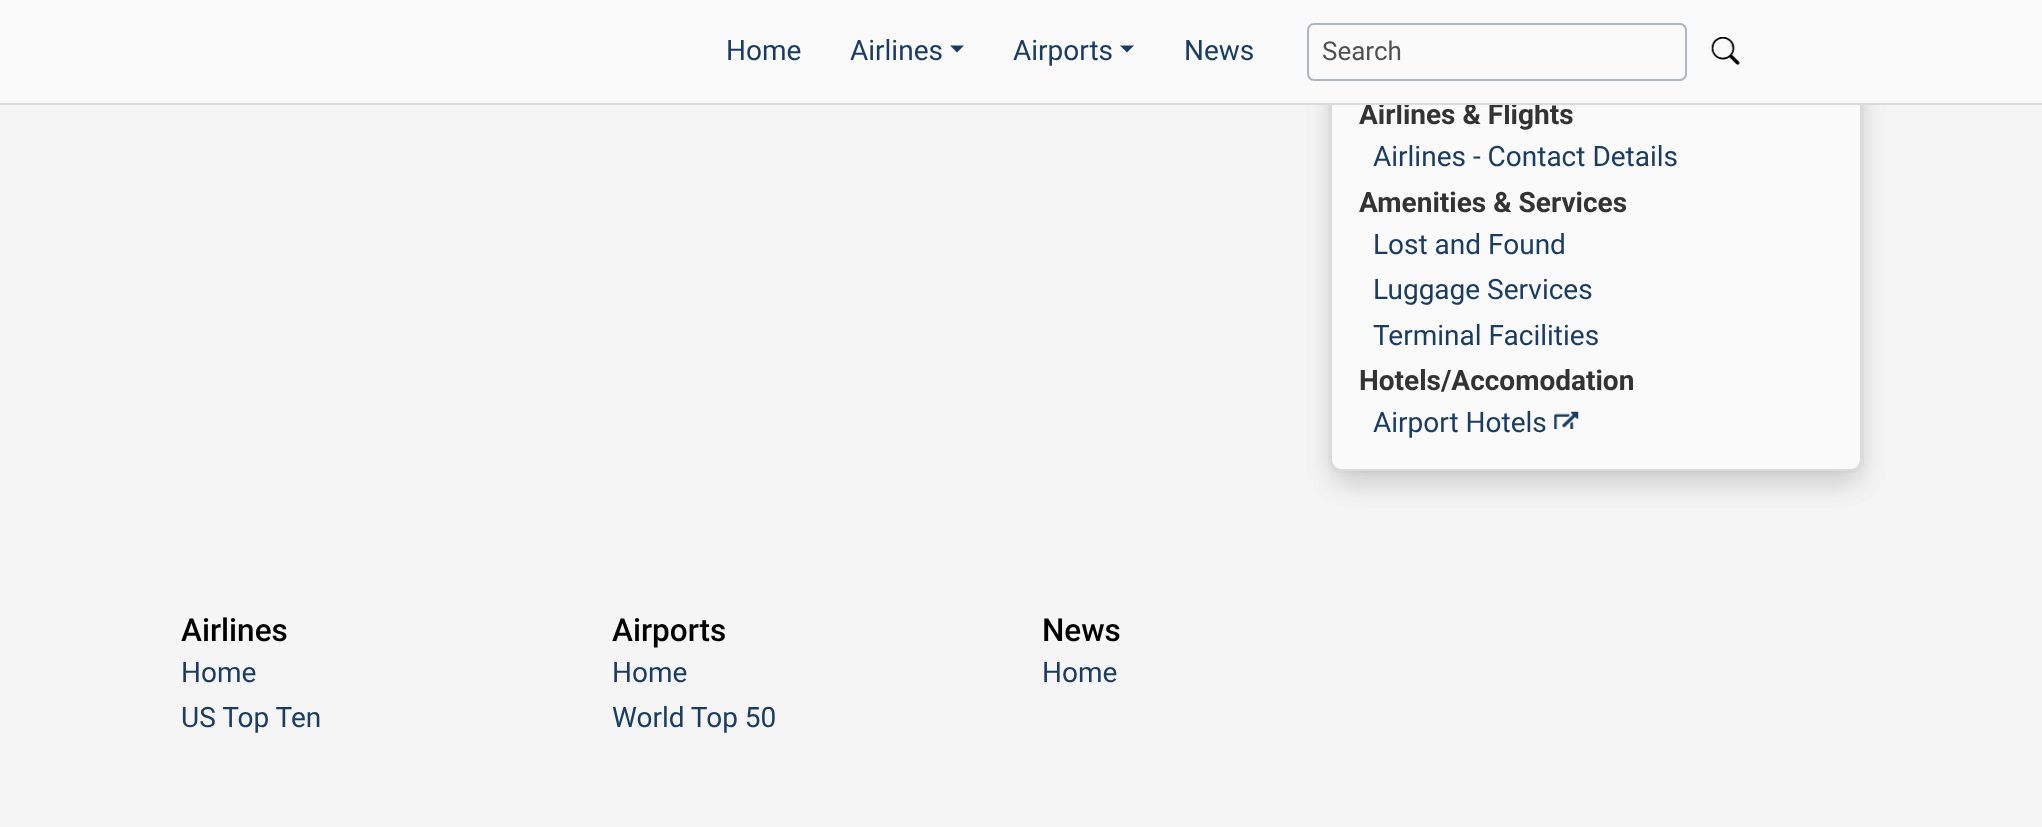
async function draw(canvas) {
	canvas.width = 2042;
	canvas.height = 827;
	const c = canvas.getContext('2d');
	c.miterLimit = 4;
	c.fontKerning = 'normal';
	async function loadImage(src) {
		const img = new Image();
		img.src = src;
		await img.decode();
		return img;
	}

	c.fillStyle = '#f5f5f5';
	c.fillRect(0, 0, 2042, 827);
	c.beginPath();
	c.roundRect(1329, -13, 534, 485, 11);
	c.strokeStyle = '#f0f0f0';
	c.lineWidth = 2;
	c.stroke();
	c.fillStyle = '#0a0a0a1a';
	c.filter = 'blur(14px)';
	c.beginPath();
	c.roundRect(1334, -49, 525, 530, 7);
	c.fill();
	c.filter = 'none';
	c.beginPath();
	c.roundRect(1331, -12, 530, 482, 10);
	c.strokeStyle = '#dbdbdb';
	c.stroke();
	c.filter = 'blur(14px)';
	c.beginPath();
	c.roundRect(1334, -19, 525, 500, 7);
	c.fill();
	c.filter = 'none';
	c.fillStyle = '#fafafa';
	c.beginPath();
	c.roundRect(1331, -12, 530, 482, 10);
	c.fill();
	c.stroke();
	c.fillRect(0, 0, 2042, 103);
	c.font = 'bold 28px Roboto';
	c.fillStyle = '#333';
	c.fillText('Airlines & Flights', 1359, 124);
	c.fillStyle = '#dbdbdb';
	c.fillRect(0, 103, 2042, 2);
	c.font = '28px Roboto';
	c.fillStyle = '#1a3c62';
	c.fillText('Home', 726, 60);
	c.fillText('Airlines', 850, 60);
	c.beginPath();
	c.moveTo(950, 45.5);
	c.lineTo(964, 45.5);
	c.lineTo(957, 52.5);
	c.closePath();
	c.fill();
	c.fillText('Airports', 1013, 60);
	c.beginPath();
	c.moveTo(1120, 45.5);
	c.lineTo(1134, 45.5);
	c.lineTo(1127, 52.5);
	c.closePath();
	c.fill();
	c.fillText('News', 1184, 60);
	c.beginPath();
	c.roundRect(1308, 24, 378, 56, 6);
	c.strokeStyle = '#adb5bd';
	c.stroke();
	c.font = '26px Roboto';
	c.fillStyle = '#515151';
	c.fillText('Search', 1322, 60);
	c.drawImage(await loadImage('img1.png'), 1711, 37, 29, 28);
	c.font = '28px Roboto';
	c.fillStyle = '#1a3c62';
	c.fillText('Airlines - Contact Details', 1373, 166);
	c.font = 'bold 28px Roboto';
	c.fillStyle = '#333';
	c.fillText('Amenities & Services', 1359, 212);
	c.font = '28px Roboto';
	c.fillStyle = '#1a3c62';
	for (const [text, x, y] of [
		['Lost and Found', 1373, 254],
		['Luggage Services', 1373, 299],
		['Terminal Facilities', 1373, 345],
	]) {
		c.fillText(text, x, y);
	}
	c.font = 'bold 28px Roboto';
	c.fillStyle = '#333';
	c.fillText('Hotels/Accomodation', 1359, 390);
	c.font = '28px Roboto';
	c.fillStyle = '#1a3c62';
	c.fillText('Airport Hotels', 1373, 432);
	c.drawImage(await loadImage('img2.png'), 1554, 411, 25, 18);
	c.font = '500 31.5px Roboto';
	c.fillStyle = '#000';
	c.fillText('Airlines', 181, 641);
	c.font = '28px Roboto';
	c.fillStyle = '#1a3c62';
	c.fillText('Home', 181, 682);
	c.fillText('US Top Ten', 181, 727);
	c.font = '500 31.5px Roboto';
	c.fillStyle = '#000';
	c.fillText('Airports', 612, 641);
	c.font = '28px Roboto';
	c.fillStyle = '#1a3c62';
	c.fillText('Home', 612, 682);
	c.fillText('World Top 50', 612, 727);
	c.font = '500 31.5px Roboto';
	c.fillStyle = '#000';
	c.fillText('News', 1042, 641);
	c.font = '28px Roboto';
	c.fillStyle = '#1a3c62';
	c.fillText('Home', 1042, 682);
}

draw(document.querySelector('canvas'));
